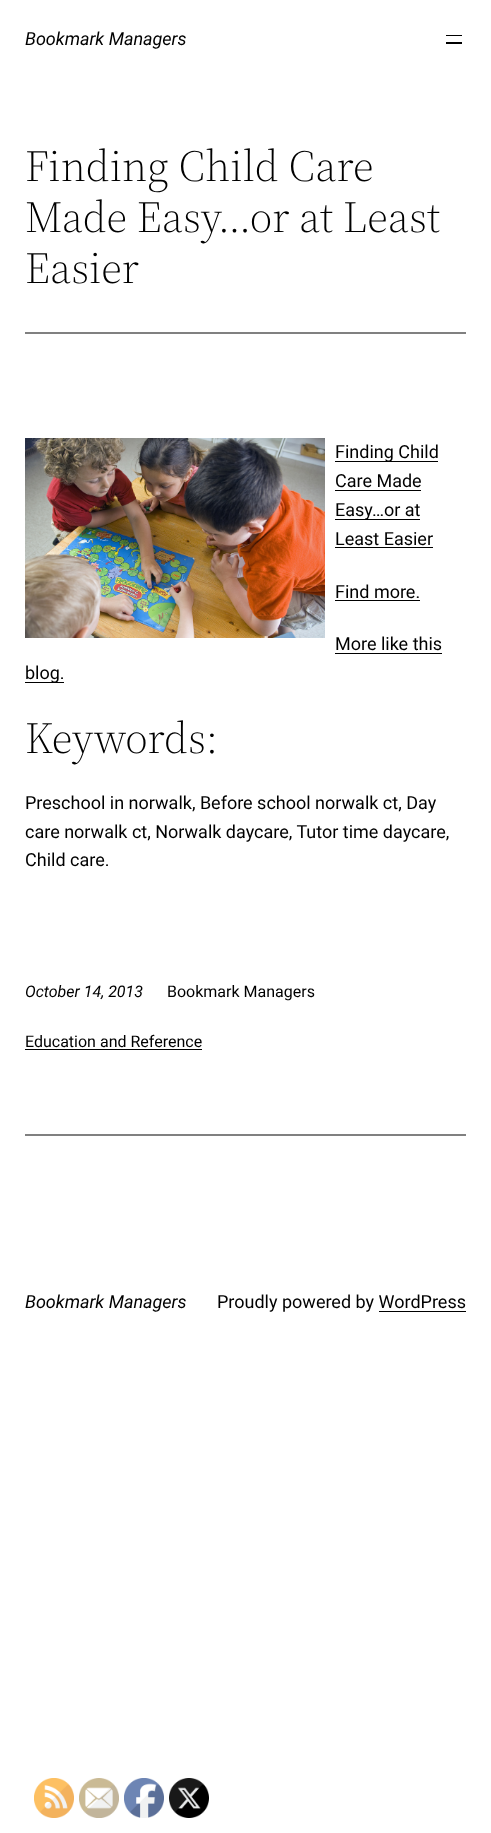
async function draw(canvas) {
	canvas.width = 491;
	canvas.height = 1833;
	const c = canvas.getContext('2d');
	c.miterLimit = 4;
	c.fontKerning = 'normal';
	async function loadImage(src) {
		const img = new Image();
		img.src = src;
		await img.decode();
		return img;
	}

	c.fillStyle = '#fff';
	c.fillRect(0, 0, 491, 1833);
	c.font = 'italic 18px Roboto';
	c.fillStyle = '#000';
	c.fillText('Bookmark Managers', 25, 45);
	c.fillRect(446, 35, 16, 1);
	c.fillRect(446, 42, 16, 2);
	c.font = '300 44px "Source Serif 4"';
	for (const [text, x, y] of [
		['Finding Child Care', 25, 181],
		['Made Easy…or at Least', 25, 232],
		['Easier', 25, 283],
	]) {
		c.fillText(text, x, y);
	}
	c.fillStyle = '#808080';
	c.fillRect(25, 332, 441, 2);
	c.drawImage(await loadImage('img1.png'), 25, 438, 300, 200);
	c.fillStyle = '#000';
	c.fillRect(335, 461, 103, 1);
	c.font = '18px Roboto';
	c.fillText('Finding Child', 335, 458);
	c.fillText('Care Made', 335, 487);
	c.fillRect(335, 490, 86, 1);
	c.fillRect(335, 519, 85, 1);
	c.fillText('Easy…or at', 335, 516);
	c.fillText('Least Easier', 335, 545);
	c.fillRect(335, 547, 98, 1);
	c.fillText('Find more.', 335, 598);
	c.fillRect(335, 600, 85, 1);
	c.fillText('More like this', 335, 650);
	c.fillRect(335, 653, 107, 1);
	c.fillRect(25, 682, 39, 1);
	c.fillText('blog.', 25, 679);
	c.font = '300 44px "Source Serif 4"';
	c.fillText('Keywords:', 25, 753);
	c.font = '18px Roboto';
	for (const [text, x, y] of [
		['Preschool in norwalk, Before school norwalk ct, Day', 25, 809],
		['care norwalk ct, Norwalk daycare, Tutor time daycare,', 25, 838],
		['Child care.', 25, 866],
	]) {
		c.fillText(text, x, y);
	}
	c.font = 'italic 16px Roboto';
	c.fillText('October 14, 2013', 25, 997);
	c.font = '16px Roboto';
	c.fillText('Bookmark Managers', 167, 997);
	c.fillText('Education and Reference', 25, 1047);
	c.fillRect(25, 1049, 177, 1);
	c.fillStyle = '#808080';
	c.fillRect(25, 1134, 441, 2);
	c.font = 'italic 18px Roboto';
	c.fillStyle = '#000';
	c.fillText('Bookmark Managers', 25, 1308);
	c.font = '18px Roboto';
	c.fillText('Proudly powered by WordPress', 217, 1308);
	c.fillRect(379, 1311, 87, 1);
	c.drawImage(await loadImage('img2.png'), 34, 1778, 40, 40);
	c.drawImage(await loadImage('img3.png'), 79, 1778, 40, 40);
	c.drawImage(await loadImage('img4.png'), 124, 1778, 40, 40);
	c.drawImage(await loadImage('img5.png'), 169, 1778, 40, 40);
}

draw(document.querySelector('canvas'));
